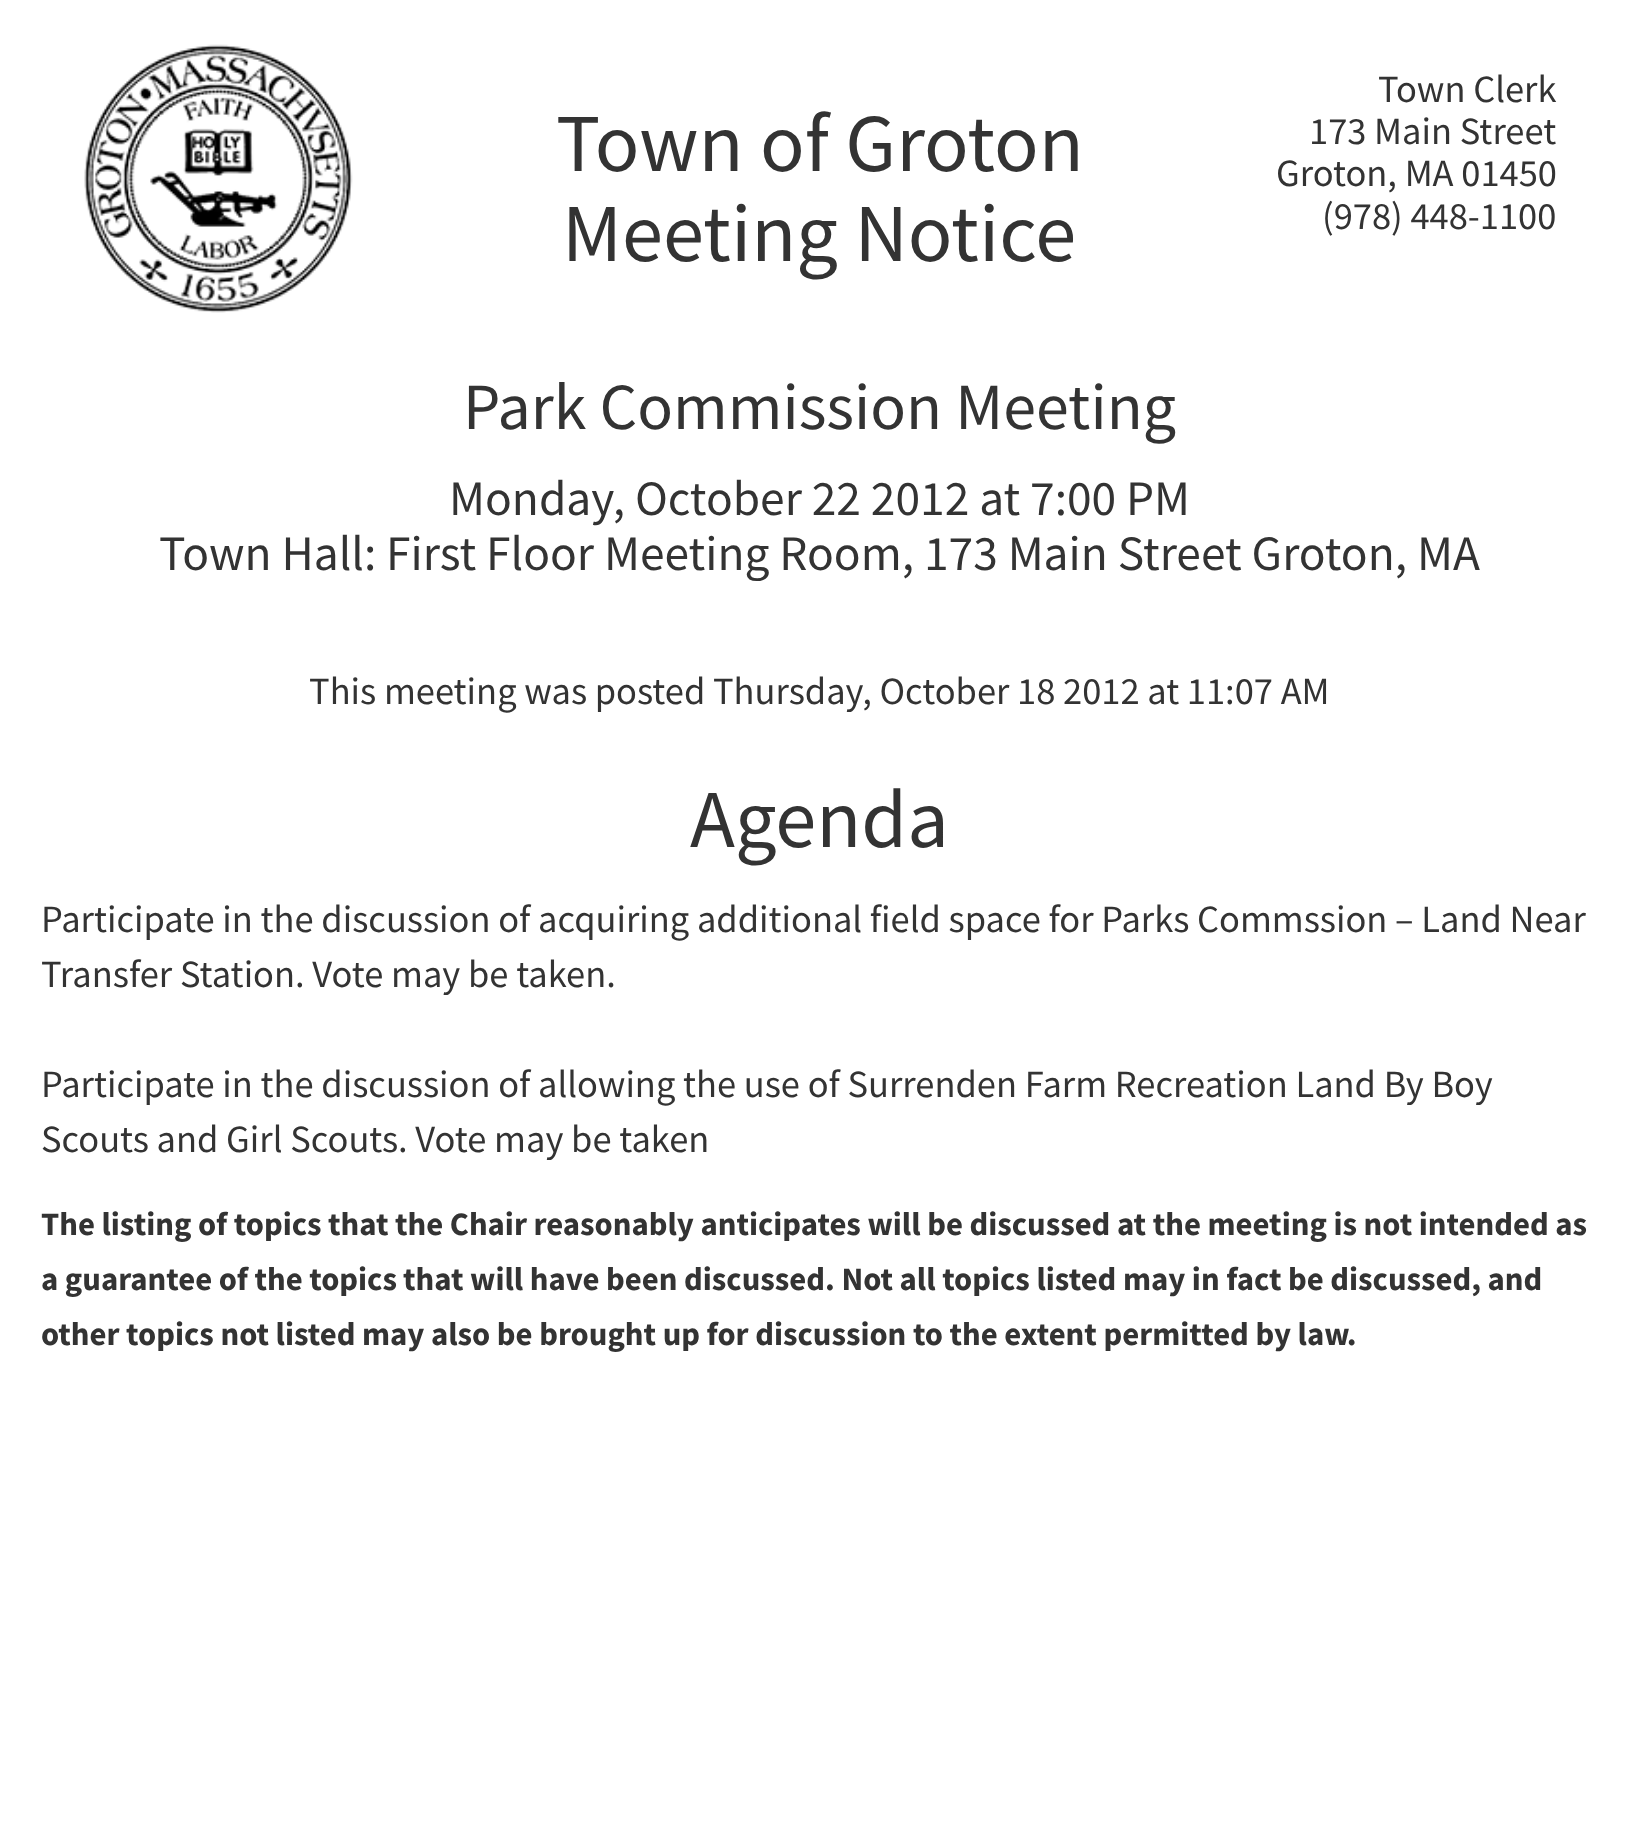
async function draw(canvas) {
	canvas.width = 1637;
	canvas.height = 1836;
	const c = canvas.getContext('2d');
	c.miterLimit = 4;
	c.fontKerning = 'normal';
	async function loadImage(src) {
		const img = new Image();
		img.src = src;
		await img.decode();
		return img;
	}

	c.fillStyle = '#fff';
	c.fillRect(0, 0, 1637, 1836);
	c.drawImage(await loadImage('img1.png'), 84, 44, 269, 269);
	c.font = '82.5px Source Sans Pro';
	c.fillStyle = '#333';
	c.fillText('Town of Groton', 556, 171);
	c.fillText('Meeting Notice', 562, 261);
	c.font = '38.5px Source Sans Pro';
	for (const [text, x, y] of [
		['Town Clerk', 1378, 102],
		['173 Main Street', 1309, 144],
		['Groton, MA 01450', 1276, 186],
		['(978) 448-1100', 1322, 229],
	]) {
		c.fillText(text, x, y);
	}
	c.font = '66px Source Sans Pro';
	c.fillText('Park Commission Meeting', 463, 429);
	c.font = '49.5px Source Sans Pro';
	c.fillText('Monday, October 22 2012 at 7:00 PM', 449, 515);
	c.fillText('Town Hall: First Floor Meeting Room, 173 Main Street Groton, MA', 159, 570);
	c.font = '38.5px Source Sans Pro';
	c.fillText('This meeting was posted Thursday, October 18 2012 at 11:07 AM', 309, 704);
	c.font = '82.5px Source Sans Pro';
	c.fillText('Agenda', 690, 847);
	c.font = '38.5px Source Sans Pro';
	for (const [text, x, y] of [
		['Participate in the discussion of acquiring additional field space for Parks Commssion – Land Near', 41, 932],
		['Transfer Station. Vote may be taken.', 41, 987],
		['Participate in the discussion of allowing the use of Surrenden Farm Recreation Land By Boy', 41, 1097],
		['Scouts and Girl Scouts. Vote may be taken', 41, 1152],
	]) {
		c.fillText(text, x, y);
	}
	c.font = 'bold 32.75px Source Sans Pro';
	for (const [text, x, y] of [
		['The listing of topics that the Chair reasonably anticipates will be discussed at the meeting is not intended as', 41, 1235],
		['a guarantee of the topics', 41, 1290],
		['that will have been discussed. Not all topics listed may in fact be discussed, and', 403, 1290],
		['other topics not listed may also be brought up for discussion to the extent permitted by law.', 41, 1345],
	]) {
		c.fillText(text, x, y);
	}
}

draw(document.querySelector('canvas'));
